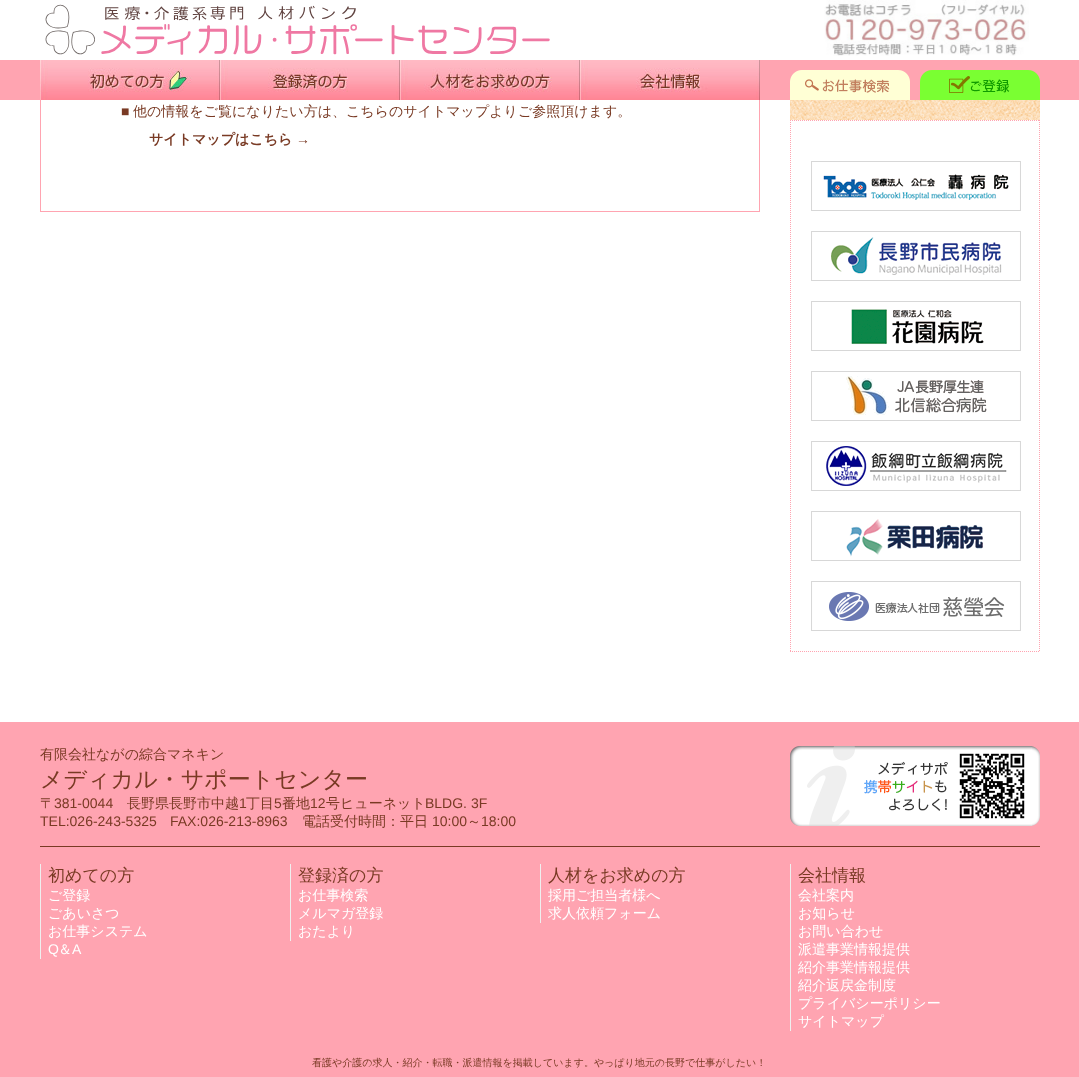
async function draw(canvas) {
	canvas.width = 1079;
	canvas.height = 1077;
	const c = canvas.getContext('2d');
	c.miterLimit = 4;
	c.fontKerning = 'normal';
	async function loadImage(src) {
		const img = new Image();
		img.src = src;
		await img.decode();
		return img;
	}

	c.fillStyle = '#fff';
	c.fillRect(0, 0, 1079, 1077);
	c.strokeStyle = '#ffa4b1';
	c.strokeRect(40.5, -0.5, 719, 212);
	c.fillRect(40, 0, 720, 60);
	c.drawImage(await loadImage('img1.png'), 45, 4, 505, 51);
	c.drawImage(await loadImage('img2.png'), 824, 0, 205, 56);
	c.fillStyle = '#ffa4b1';
	c.fillRect(0, 60, 1079, 40);
	c.drawImage(await loadImage('img3.png'), 40, 60, 180, 40);
	c.drawImage(await loadImage('img4.png'), 220, 60, 180, 40);
	c.drawImage(await loadImage('img5.png'), 400, 60, 180, 40);
	c.drawImage(await loadImage('img6.png'), 580, 60, 180, 40);
	c.drawImage(await loadImage('img7.png'), 790, 70, 120, 30);
	c.drawImage(await loadImage('img8.png'), 920, 70, 120, 30);
	c.font = '14px Liberation Sans';
	c.fillStyle = '#793a24';
	c.fillText('■', 121, 116);
	c.font = '500 14px WenQuanYi Zen Hei';
	c.fillText('他の情報をご覧になりたい方は、こちらのサイトマップよりご参照頂けます。', 133, 116);
	c.font = 'bold 14px WenQuanYi Zen Hei';
	c.fillText('サイトマップはこちら', 149, 144);
	c.font = 'bold 14px Liberation Sans';
	c.fillText('→', 296, 144);
	c.drawImage(await loadImage('img9.png'), 790, 100, 250, 20);
	c.beginPath();
	c.moveTo(790, 120.5);
	c.lineTo(1040, 120.5);
	c.setLineDash([1, 1]);
	c.stroke();
	c.beginPath();
	c.moveTo(1039.5, 120);
	c.lineTo(1039.5, 652);
	c.stroke();
	c.beginPath();
	c.moveTo(790, 651.5);
	c.lineTo(1040, 651.5);
	c.stroke();
	c.beginPath();
	c.moveTo(790.5, 120);
	c.lineTo(790.5, 652);
	c.stroke();
	c.drawImage(await loadImage('img10.png'), 811, 161, 210, 50);
	c.drawImage(await loadImage('img11.png'), 811, 231, 210, 50);
	c.drawImage(await loadImage('img12.png'), 811, 301, 210, 50);
	c.drawImage(await loadImage('img13.png'), 811, 371, 210, 50);
	c.drawImage(await loadImage('img14.png'), 811, 441, 210, 50);
	c.drawImage(await loadImage('img15.png'), 811, 511, 210, 50);
	c.drawImage(await loadImage('img16.png'), 811, 581, 210, 50);
	c.fillStyle = '#ffa4b1';
	c.fillRect(0, 722, 1079, 355);
	c.drawImage(await loadImage('img17.png'), 790, 746, 250, 80);
	c.fillStyle = '#793a24';
	c.fillRect(40, 846, 1000, 1);
	c.font = '500 14px WenQuanYi Zen Hei';
	c.fillText('有限会社ながの綜合マネキン', 40, 759);
	c.font = '500 23px WenQuanYi Zen Hei';
	c.fillText('メディカル・サポートセンター', 40, 787);
	c.font = '500 14px WenQuanYi Zen Hei';
	c.fillText('〒', 40, 808);
	c.font = '14px Liberation Sans';
	c.fillText('381-0044', 54, 808);
	c.font = '500 14px WenQuanYi Zen Hei';
	c.fillText('長野県長野市中越', 127, 808);
	c.font = '14px Liberation Sans';
	c.fillText('1', 239, 808);
	c.font = '500 14px WenQuanYi Zen Hei';
	c.fillText('丁目', 246, 808);
	c.font = '14px Liberation Sans';
	c.fillText('5', 274, 808);
	c.font = '500 14px WenQuanYi Zen Hei';
	c.fillText('番地', 282, 808);
	c.font = '14px Liberation Sans';
	c.fillText('12', 310, 808);
	c.font = '500 14px WenQuanYi Zen Hei';
	c.fillText('号ヒューネット', 326, 808);
	c.font = '14px Liberation Sans';
	for (const [text, x, y] of [
		['BLDG. 3F', 425, 808],
		['TEL:026-243-5325', 40, 826],
		['FAX:026-213-8963', 170, 826],
	]) {
		c.fillText(text, x, y);
	}
	c.font = '500 14px WenQuanYi Zen Hei';
	c.fillText('電話受付時間：平日', 302, 826);
	c.font = '14px Liberation Sans';
	c.fillText('10:00', 432, 826);
	c.font = '500 14px WenQuanYi Zen Hei';
	c.fillText('～', 467, 826);
	c.font = '14px Liberation Sans';
	c.fillText('18:00', 481, 826);
	c.fillStyle = '#efefef';
	c.fillRect(40, 864, 1, 95);
	c.font = '500 17px WenQuanYi Zen Hei';
	c.fillStyle = '#793a24';
	c.fillText('初めての方', 48, 881);
	c.font = '500 14px WenQuanYi Zen Hei';
	c.fillStyle = '#fff';
	for (const [text, x, y] of [
		['ご登録', 48, 900],
		['ごあいさつ', 48, 918],
		['お仕事システム', 48, 936],
	]) {
		c.fillText(text, x, y);
	}
	c.font = '14px Liberation Sans';
	c.fillText('Q', 48, 954);
	c.font = '500 14px WenQuanYi Zen Hei';
	c.fillText('＆', 58, 954);
	c.font = '14px Liberation Sans';
	c.fillText('A', 72, 954);
	c.fillStyle = '#efefef';
	c.fillRect(290, 864, 1, 77);
	c.font = '500 17px WenQuanYi Zen Hei';
	c.fillStyle = '#793a24';
	c.fillText('登録済の方', 298, 881);
	c.font = '500 14px WenQuanYi Zen Hei';
	c.fillStyle = '#fff';
	for (const [text, x, y] of [
		['お仕事検索', 298, 900],
		['メルマガ登録', 298, 918],
		['おたより', 298, 936],
	]) {
		c.fillText(text, x, y);
	}
	c.fillStyle = '#efefef';
	c.fillRect(540, 864, 1, 59);
	c.font = '500 17px WenQuanYi Zen Hei';
	c.fillStyle = '#793a24';
	c.fillText('人材をお求めの方', 548, 881);
	c.font = '500 14px WenQuanYi Zen Hei';
	c.fillStyle = '#fff';
	c.fillText('採用ご担当者様へ', 548, 900);
	c.fillText('求人依頼フォーム', 548, 918);
	c.fillStyle = '#efefef';
	c.fillRect(790, 864, 1, 167);
	c.font = '500 17px WenQuanYi Zen Hei';
	c.fillStyle = '#793a24';
	c.fillText('会社情報', 798, 881);
	c.font = '500 14px WenQuanYi Zen Hei';
	c.fillStyle = '#fff';
	for (const [text, x, y] of [
		['会社案内', 798, 900],
		['お知らせ', 798, 918],
		['お問い合わせ', 798, 936],
		['派遣事業情報提供', 798, 954],
		['紹介事業情報提供', 798, 972],
		['紹介返戻金制度', 798, 990],
		['プライバシーポリシー', 798, 1008],
		['サイトマップ', 798, 1026],
	]) {
		c.fillText(text, x, y);
	}
	c.font = '500 10px WenQuanYi Zen Hei';
	c.fillStyle = '#793a24';
	c.fillText('看護や介護の求人・紹介・転職・派遣情報を掲載しています。やっぱり地元の長野で仕事がしたい！', 312, 1066);
}

draw(document.querySelector('canvas'));
